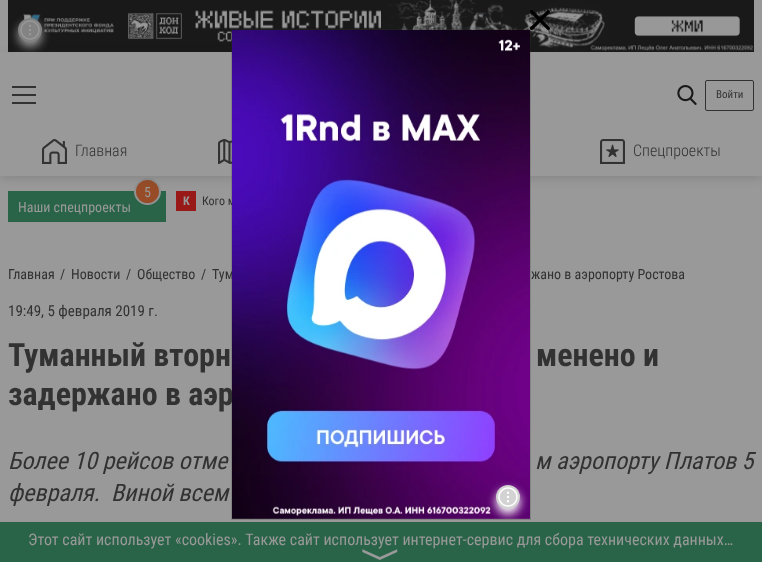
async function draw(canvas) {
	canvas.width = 762;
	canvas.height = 562;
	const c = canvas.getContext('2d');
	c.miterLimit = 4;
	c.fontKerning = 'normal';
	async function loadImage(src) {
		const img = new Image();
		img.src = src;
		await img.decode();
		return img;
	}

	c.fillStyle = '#999';
	c.fillRect(0, 0, 762, 562);
	c.drawImage(await loadImage('img1.png'), 8, 0, 746, 52);
	c.save();
	c.beginPath();
	c.rect(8, 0, 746, 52);
	c.clip();
	c.filter = 'blur(5px)';
	c.beginPath();
	c.roundRect(18, 23, 24, 24, 12);
	c.fill();
	c.filter = 'none';
	c.restore();
	c.fillStyle = '#838383';
	c.beginPath();
	c.arc(30, 30, 12, 0, 2 * Math.PI);
	c.fill();
	c.drawImage(await loadImage('img2.png'), 20, 20, 20, 20);
	c.fillStyle = '#2a6448';
	c.fillRect(8, 191, 158, 31);
	c.fillStyle = '#974c27';
	c.beginPath();
	c.arc(147.5, 191.5, 12.5, 0, 2 * Math.PI);
	c.fill();
	c.strokeStyle = '#919191';
	c.lineWidth = 2;
	c.stroke();
	c.fillStyle = '#991919';
	c.fillRect(176, 191, 20, 20);
	c.save();
	c.beginPath();
	c.moveTo(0, 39);
	c.lineTo(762, 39);
	c.lineTo(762, 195);
	c.lineTo(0, 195);
	c.closePath();
	c.moveTo(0, 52);
	c.lineTo(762, 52);
	c.lineTo(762, 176);
	c.lineTo(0, 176);
	c.closePath();
	c.clip('evenodd');
	c.fillStyle = '#40404033';
	c.filter = 'blur(5px)';
	c.beginPath();
	c.rect(0, 55, 762, 124);
	c.fill();
	c.filter = 'none';
	c.restore();
	c.drawImage(await loadImage('img8.png'), 218, 139, 14, 25);
	c.font = '12px Roboto Condensed';
	c.fillStyle = '#323232';
	c.fillText('Кого м', 202, 205);
	c.font = '14px Roboto Condensed';
	c.fillText('Тум', 212, 279);
	c.font = 'bold 32px Roboto Condensed';
	c.fillText('задержано в аэр', 8, 405);
	c.strokeStyle = '#32323233';
	c.lineWidth = 1;
	c.strokeRect(231.5, 29.5, 299, 490);
	c.drawImage(await loadImage('img3.png'), 530, 10, 20, 20);
	c.drawImage(await loadImage('img4.png'), 232, 30, 298, 489);
	c.fillStyle = '#2a6448';
	c.fillRect(0, 522, 762, 40);
	c.save();
	c.beginPath();
	c.rect(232, 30, 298, 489);
	c.clip();
	c.fillStyle = '#fff';
	c.filter = 'blur(5px)';
	c.beginPath();
	c.roundRect(496, 490, 24, 24, 12);
	c.fill();
	c.filter = 'none';
	c.restore();
	c.fillStyle = '#d3d3d3';
	c.beginPath();
	c.arc(508, 497, 12, 0, 2 * Math.PI);
	c.fill();
	c.drawImage(await loadImage('img5.png'), 498, 487, 20, 20);
	for (const [x, y, w, h, color] of [
		[12, 94, 24, 2, '#323232'],
		[12, 86, 24, 2, '#323232'],
		[12, 102, 24, 2, '#323232'],
	]) {
		c.fillStyle = color;
		c.fillRect(x, y, w, h);
	}
	c.drawImage(await loadImage('img6.png'), 677, 85, 20, 20);
	c.beginPath();
	c.roundRect(705.5, 80.5, 48, 30, 1.5);
	c.strokeStyle = '#323232';
	c.stroke();
	c.font = '11px Roboto Condensed';
	c.fillText('Войти', 716, 98);
	c.drawImage(await loadImage('img7.png'), 42, 139, 25, 25);
	c.font = '300 16px Roboto Condensed';
	c.fillText('Главная', 75, 156);
	c.drawImage(await loadImage('img9.png'), 600, 139, 25, 25);
	c.fillText('Спецпроекты', 633, 156);
	c.font = '14px Roboto Condensed';
	c.fillStyle = '#999';
	c.fillText('5', 144, 197);
	c.fillText('Наши спецпроекты', 18, 212);
	c.font = 'bold 12px Roboto Condensed';
	c.fillText('К', 183, 205);
	c.font = '14px Roboto Condensed';
	c.fillStyle = '#323232';
	for (const [text, x, y] of [
		['Главная', 8, 279],
		['/', 60, 279],
		['Новости', 71, 279],
		['/', 126, 279],
		['Общество', 137, 279],
		['/', 201, 279],
		['жано в аэропорту Ростова', 531, 279],
	]) {
		c.fillText(text, x, y);
	}
	c.font = '15px Roboto Condensed';
	c.fillText('19:49, 5 февраля 2019 г.', 8, 316);
	c.font = 'bold 32px Roboto Condensed';
	c.fillText('Туманный вторн', 8, 366);
	c.fillText('менено и', 536, 366);
	c.font = 'italic 24px Roboto Condensed';
	for (const [text, x, y] of [
		['Более 10 рейсов отме', 8, 469],
		['м аэропорту Платов 5', 535, 469],
		['февраля.  Виной всем', 8, 501],
	]) {
		c.fillText(text, x, y);
	}
	c.font = '16px Roboto Condensed';
	c.fillStyle = '#999';
	c.fillText('Этот сайт использует «cookies». Также сайт использует интернет-сервис для сбора технических данных…', 28, 545);
	c.font = '40px FreeSans';
	c.save();
	c.translate(368, 548);
	c.rotate(90 * Math.PI / 180);
	c.fillText('〉', 0, 0);
	c.restore();
}

draw(document.querySelector('canvas'));
